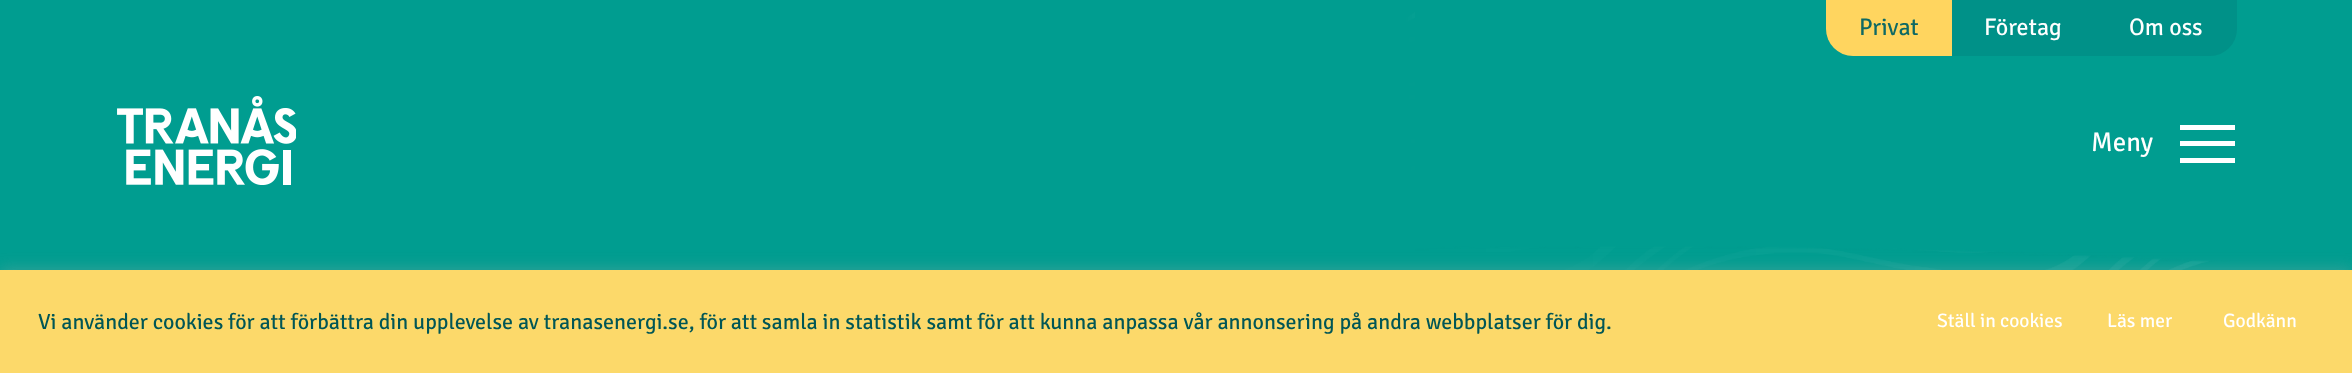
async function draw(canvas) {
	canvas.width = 2352;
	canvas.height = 373;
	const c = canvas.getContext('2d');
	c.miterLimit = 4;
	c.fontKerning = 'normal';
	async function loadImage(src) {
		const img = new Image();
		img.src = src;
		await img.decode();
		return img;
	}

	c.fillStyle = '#fff';
	c.fillRect(0, 0, 2352, 373);
	c.drawImage(await loadImage('img1.png'), 0, 0, 2352, 270);
	c.drawImage(await loadImage('img2.png'), 1415, 0, 937, 262);
	c.fillStyle = '#ffd55f';
	c.beginPath();
	c.roundRect(1826, 0, 126, 56, [0, 0, 0, 27]);
	c.fill();
	c.font = '24px Signika Negative';
	c.fillStyle = '#0e6964';
	c.fillText('Privat', 1859, 35);
	c.fillStyle = '#009188';
	c.fillRect(1952, 0, 145, 56);
	c.fillStyle = '#fff';
	c.fillText('Företag', 1984, 35);
	c.fillStyle = '#009188';
	c.beginPath();
	c.roundRect(2097, 0, 140, 56, [0, 0, 27, 0]);
	c.fill();
	c.fillStyle = '#fff';
	c.fillText('Om oss', 2129, 35);
	c.drawImage(await loadImage('img3.png'), 117, 96, 179, 89);
	c.font = '27px Signika Negative';
	c.fillText('Meny', 2091, 151);
	for (const [x, y, w, h, color] of [
		[2180, 125, 55, 5, '#fff'],
		[2180, 141, 55, 5, '#fff'],
		[2180, 158, 55, 5, '#fff'],
	]) {
		c.fillStyle = color;
		c.fillRect(x, y, w, h);
	}
	c.fillStyle = '#acabab4d';
	c.filter = 'blur(7.5px)';
	c.beginPath();
	c.rect(0, 269, 2352, 103);
	c.fill();
	c.filter = 'none';
	c.fillStyle = '#fcd96a';
	c.fillRect(0, 270, 2352, 103);
	c.font = '22px Signika Negative';
	c.fillStyle = '#005656';
	c.fillText('Vi använder cookies för att förbättra din upplevelse av tranasenergi.se, för att samla in statistik samt för att kunna anpassa vår annonsering på andra webbplatser för dig.', 38, 329);
	c.font = '19.5px Signika Negative';
	c.fillStyle = '#fff';
	for (const [text, x, y] of [
		['Ställ in cookies', 1937, 327],
		['Läs mer', 2107, 327],
		['Godkänn', 2223, 327],
	]) {
		c.fillText(text, x, y);
	}
}

draw(document.querySelector('canvas'));
